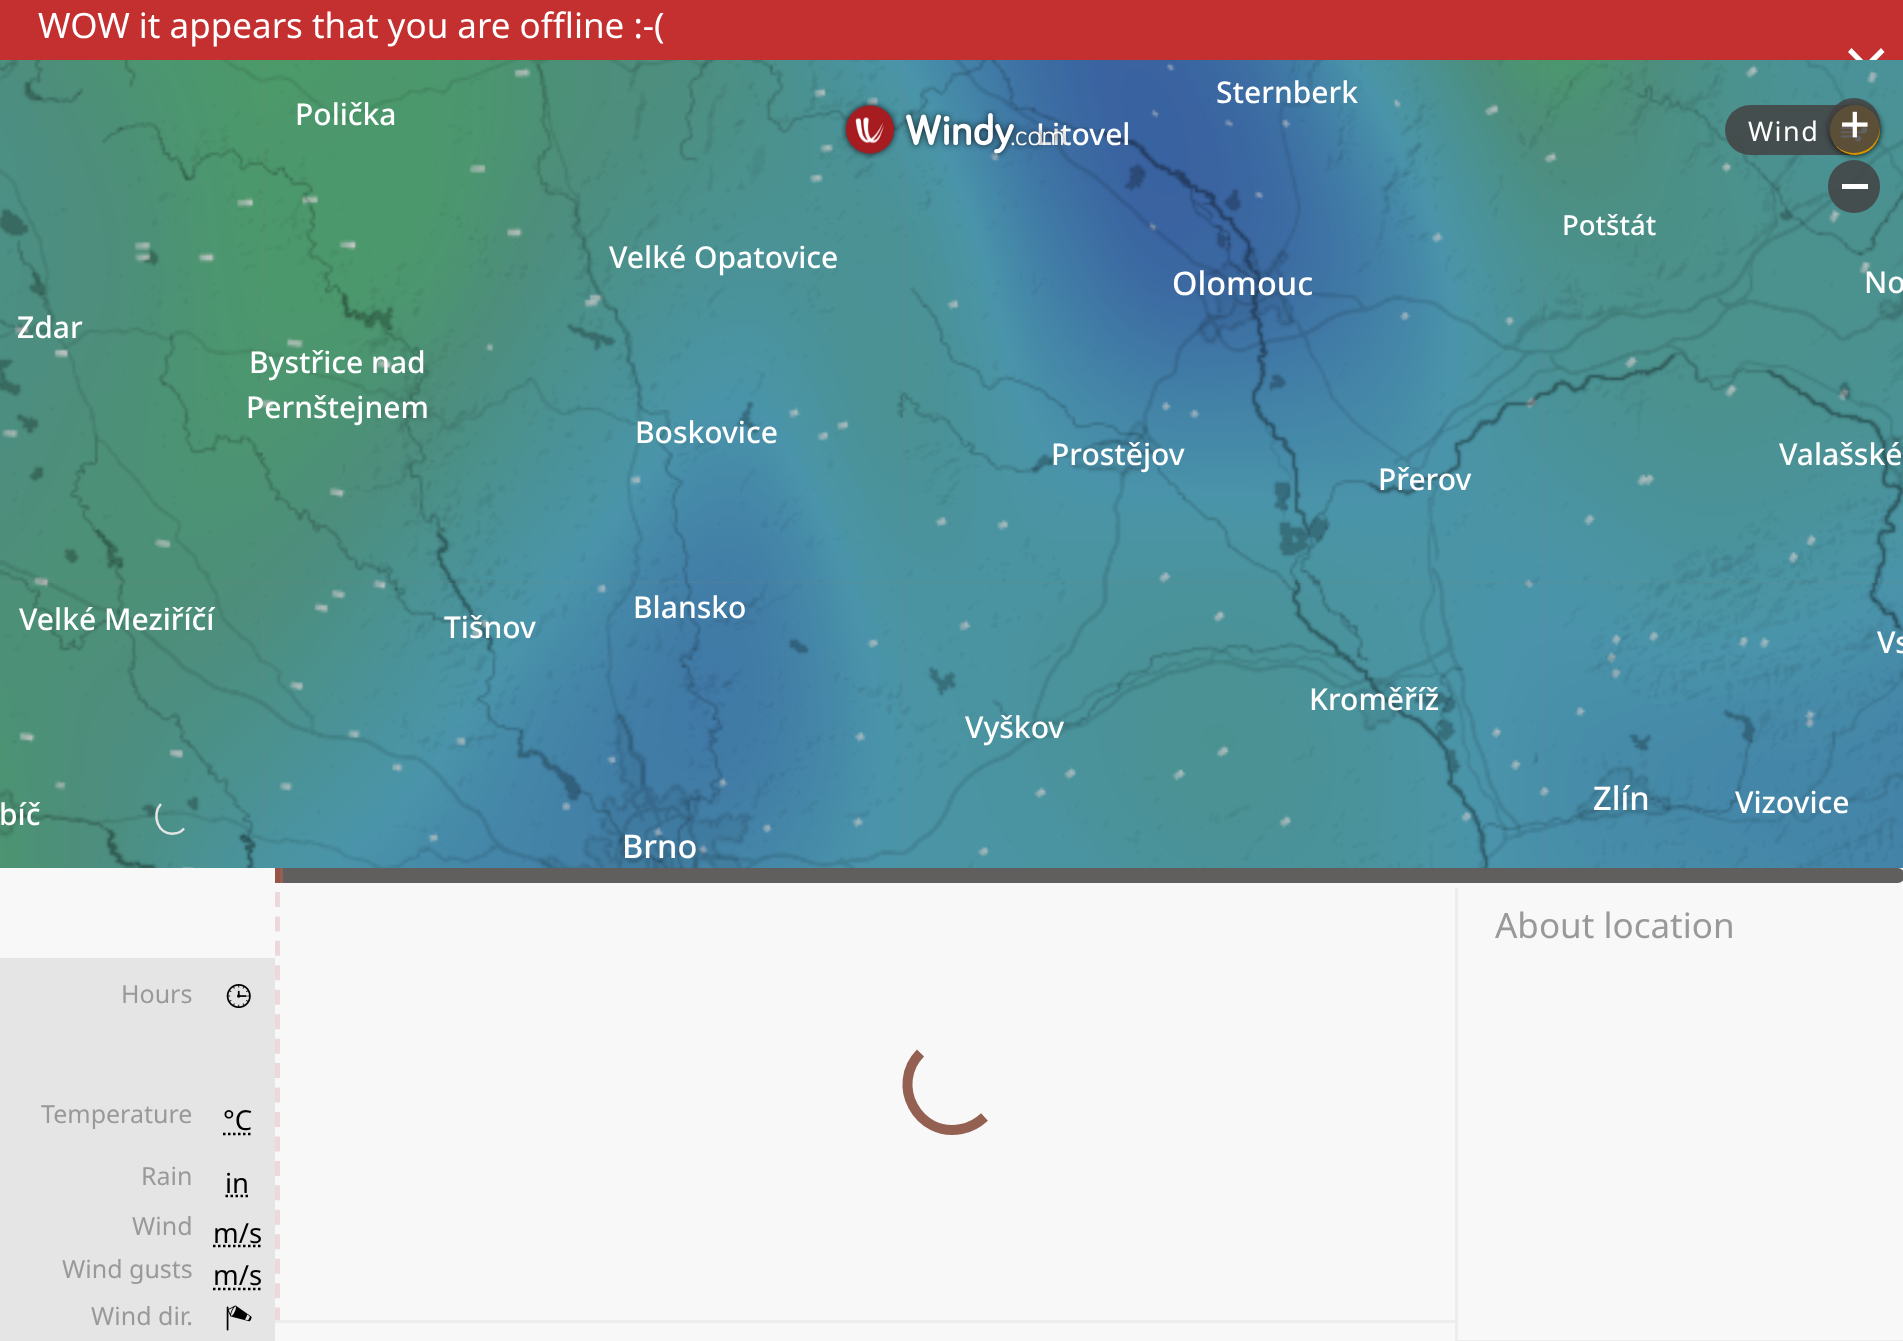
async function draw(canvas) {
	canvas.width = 1903;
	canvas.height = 1341;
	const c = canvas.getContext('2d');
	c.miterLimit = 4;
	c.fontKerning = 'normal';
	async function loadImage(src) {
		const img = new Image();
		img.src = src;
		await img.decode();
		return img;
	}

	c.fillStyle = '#808080';
	c.fillRect(0, 0, 1903, 1341);
	c.fillStyle = '#c42f2f';
	c.fillRect(0, 0, 1903, 60);
	c.font = '35px Noto Sans';
	c.fillStyle = '#fff';
	c.fillText('WOW it appears that you are offline :-(', 38, 38);
	c.save();
	c.beginPath();
	c.rect(0, 0, 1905, 60);
	c.clip();
	c.beginPath();
	c.moveTo(1884.5, 52);
	c.lineTo(1881, 48);
	c.lineTo(1866, 63);
	c.lineTo(1851.5, 48);
	c.lineTo(1848, 52);
	c.lineTo(1862.5, 66.5);
	c.lineTo(1848, 81);
	c.lineTo(1851.5, 84.5);
	c.lineTo(1866, 70);
	c.lineTo(1881, 84.5);
	c.lineTo(1884.5, 81);
	c.lineTo(1870, 66.5);
	c.closePath();
	c.fill();
	c.restore();
	c.drawImage(await loadImage('img6.png'), 262, 582, 641, 286);
	c.drawImage(await loadImage('img7.png'), 902, 582, 641, 286);
	c.drawImage(await loadImage('img2.png'), 262, 60, 641, 523);
	c.drawImage(await loadImage('img5.png'), 0, 582, 263, 286);
	c.drawImage(await loadImage('img1.png'), 0, 60, 263, 523);
	c.drawImage(await loadImage('img3.png'), 902, 60, 641, 523);
	c.drawImage(await loadImage('img8.png'), 1542, 582, 361, 286);
	c.drawImage(await loadImage('img4.png'), 1542, 60, 361, 523);
	c.drawImage(await loadImage('img17.png'), 2, 60, 1877, 808);
	c.drawImage(await loadImage('img9.png'), 0, 60, 263, 523);
	c.drawImage(await loadImage('img10.png'), 263, 60, 640, 523);
	c.drawImage(await loadImage('img11.png'), 903, 60, 640, 523);
	c.drawImage(await loadImage('img12.png'), 1543, 60, 360, 523);
	c.drawImage(await loadImage('img13.png'), 0, 583, 263, 285);
	c.drawImage(await loadImage('img14.png'), 263, 583, 640, 285);
	c.drawImage(await loadImage('img15.png'), 903, 583, 640, 285);
	c.drawImage(await loadImage('img16.png'), 1543, 583, 360, 285);
	c.font = '500 30px Noto Sans';
	for (const [text, x, y] of [
		['Zdar', 17, 338],
		['Polička', 295, 125],
		['Velké Opatovice', 609, 268],
		['Bystřice nad', 249, 373],
		['Pernštejnem', 246, 418],
		['Boskovice', 635, 443],
		['Sternberk', 1216, 103],
		['Litovel', 1036, 145],
	]) {
		c.fillText(text, x, y);
	}
	c.font = '500 32.5px Noto Sans';
	c.fillText('Olomouc', 1172, 295);
	c.font = '500 30px Noto Sans';
	c.fillText('Prostějov', 1051, 465);
	c.fillText('Přerov', 1378, 490);
	c.font = '500 27.5px Noto Sans';
	c.fillText('Potštát', 1562, 235);
	c.font = '500 30px Noto Sans';
	for (const [text, x, y] of [
		['No', 1864, 293],
		['Valašské', 1779, 465],
		['Velké Meziříčí', 19, 630],
		['bíč', -1, 825],
		['Blansko', 633, 618],
		['Tišnov', 444, 638],
	]) {
		c.fillText(text, x, y);
	}
	c.font = '500 32.5px Noto Sans';
	c.fillText('Brno', 622, 858);
	c.font = '500 30px Noto Sans';
	for (const [text, x, y] of [
		['Kroměříž', 1309, 710],
		['Vyškov', 965, 738],
		['Vs', 1877, 653],
	]) {
		c.fillText(text, x, y);
	}
	c.font = '500 32.5px Noto Sans';
	c.fillText('Zlín', 1593, 810);
	c.font = '500 30px Noto Sans';
	c.fillText('Vizovice', 1735, 813);
	c.drawImage(await loadImage('img18.png'), 841, 100, 59, 59);
	c.drawImage(await loadImage('img19.png'), 901, 109, 167, 50);
	c.fillStyle = '#444141d6';
	c.beginPath();
	c.roundRect(1725, 105, 155, 50, 25);
	c.fill();
	c.letterSpacing = '1.5px';
	c.font = '27px Noto Sans';
	c.fillStyle = '#fff';
	c.fillText('Wind', 1748, 141);
	c.fillStyle = '#000';
	c.filter = 'blur(3px)';
	c.beginPath();
	c.roundRect(1830, 105, 50, 50, 25);
	c.fill();
	c.filter = 'none';
	c.fillStyle = '#d49500';
	c.beginPath();
	c.arc(1855, 130, 25, 0, 2 * Math.PI);
	c.fill();
	c.drawImage(await loadImage('img20.png'), 1840, 126, 28, 16);
	c.fillStyle = '#444141d6';
	c.beginPath();
	c.roundRect(1828, 98, 52, 55, 26);
	c.fill();
	c.drawImage(await loadImage('img21.png'), 1842, 111, 26, 27);
	c.beginPath();
	c.roundRect(1828, 160, 52, 53, 26);
	c.fill();
	c.fillStyle = '#fff';
	c.fillRect(1842, 184, 26, 5);
	c.beginPath();
	c.moveTo(184, 828.5);
	c.bezierCurveTo(181.5, 831.5, 178, 833.5, 174, 833.5);
	c.bezierCurveTo(158, 835.5, 151, 814.5, 161, 804);
	c.strokeStyle = '#e5e5e5';
	c.lineWidth = 2.5;
	c.stroke();
	c.fillStyle = '#f8f8f8';
	c.fillRect(0, 868, 1903, 473);
	c.fillStyle = '#615e5e';
	c.beginPath();
	c.roundRect(275, 868, 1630, 15, 7.5);
	c.fill();
	c.fillStyle = '#946051';
	c.fillRect(275, 868, 8, 15);
	c.save();
	c.beginPath();
	c.rect(275, 868, 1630, 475);
	c.clip();
	c.beginPath();
	c.moveTo(277.5, 867.5);
	c.lineTo(277.5, 1322.5);
	c.strokeStyle = '#9d03001f';
	c.lineWidth = 5;
	c.setLineDash([15, 9.45]);
	c.stroke();
	c.restore();
	for (const [x, y, w, h, color] of [
		[1455, 1340, 448, 1, '#ededed'],
		[1455, 888, 3, 453, '#ededed'],
		[275, 1320, 1183, 3, '#ededed'],
	]) {
		c.fillStyle = color;
		c.fillRect(x, y, w, h);
	}
	c.letterSpacing = '0px';
	c.font = '35px Noto Sans';
	c.fillStyle = '#999';
	c.fillText('About location', 1495, 938);
	c.fillStyle = '#e5e5e5';
	c.fillRect(0, 958, 275, 383);
	c.font = '25px Noto Sans';
	c.fillStyle = '#999';
	c.fillText('Hours', 121, 1003);
	c.drawImage(await loadImage('img22.png'), 226, 984, 25, 25);
	c.fillText('Temperature', 41, 1123);
	c.font = '27.5px Noto Sans';
	c.fillStyle = '#000';
	c.fillText('°C', 223, 1130);
	c.beginPath();
	c.moveTo(223, 1134);
	c.lineTo(252, 1134);
	c.strokeStyle = '#000';
	c.setLineDash([2.5, 2.5]);
	c.stroke();
	c.font = '25px Noto Sans';
	c.fillStyle = '#999';
	c.fillText('Rain', 141, 1185);
	c.font = '27.5px Noto Sans';
	c.fillStyle = '#000';
	c.fillText('in', 225, 1193);
	c.beginPath();
	c.moveTo(225.5, 1196);
	c.lineTo(249.5, 1196);
	c.stroke();
	c.font = '25px Noto Sans';
	c.fillStyle = '#999';
	c.fillText('Wind', 132, 1235);
	c.font = '27.5px Noto Sans';
	c.fillStyle = '#000';
	c.fillText('m/s', 213, 1243);
	c.beginPath();
	c.moveTo(213, 1246);
	c.lineTo(262, 1246);
	c.stroke();
	c.font = '25px Noto Sans';
	c.fillStyle = '#999';
	c.fillText('Wind gusts', 62, 1278);
	c.font = '27.5px Noto Sans';
	c.fillStyle = '#000';
	c.fillText('m/s', 213, 1285);
	c.beginPath();
	c.moveTo(213, 1289);
	c.lineTo(262, 1289);
	c.stroke();
	c.font = '25px Noto Sans';
	c.fillStyle = '#999';
	c.fillText('Wind dir.', 91, 1325);
	c.drawImage(await loadImage('img23.png'), 226, 1305, 26, 26);
	c.beginPath();
	c.moveTo(984.5, 1117);
	c.bezierCurveTo(978, 1123, 970, 1127.5, 961.5, 1129);
	c.bezierCurveTo(918, 1138, 889.5, 1084.5, 920.5, 1053);
	c.strokeStyle = '#946051';
	c.lineWidth = 10;
	c.setLineDash([]);
	c.stroke();
}

draw(document.querySelector('canvas'));
